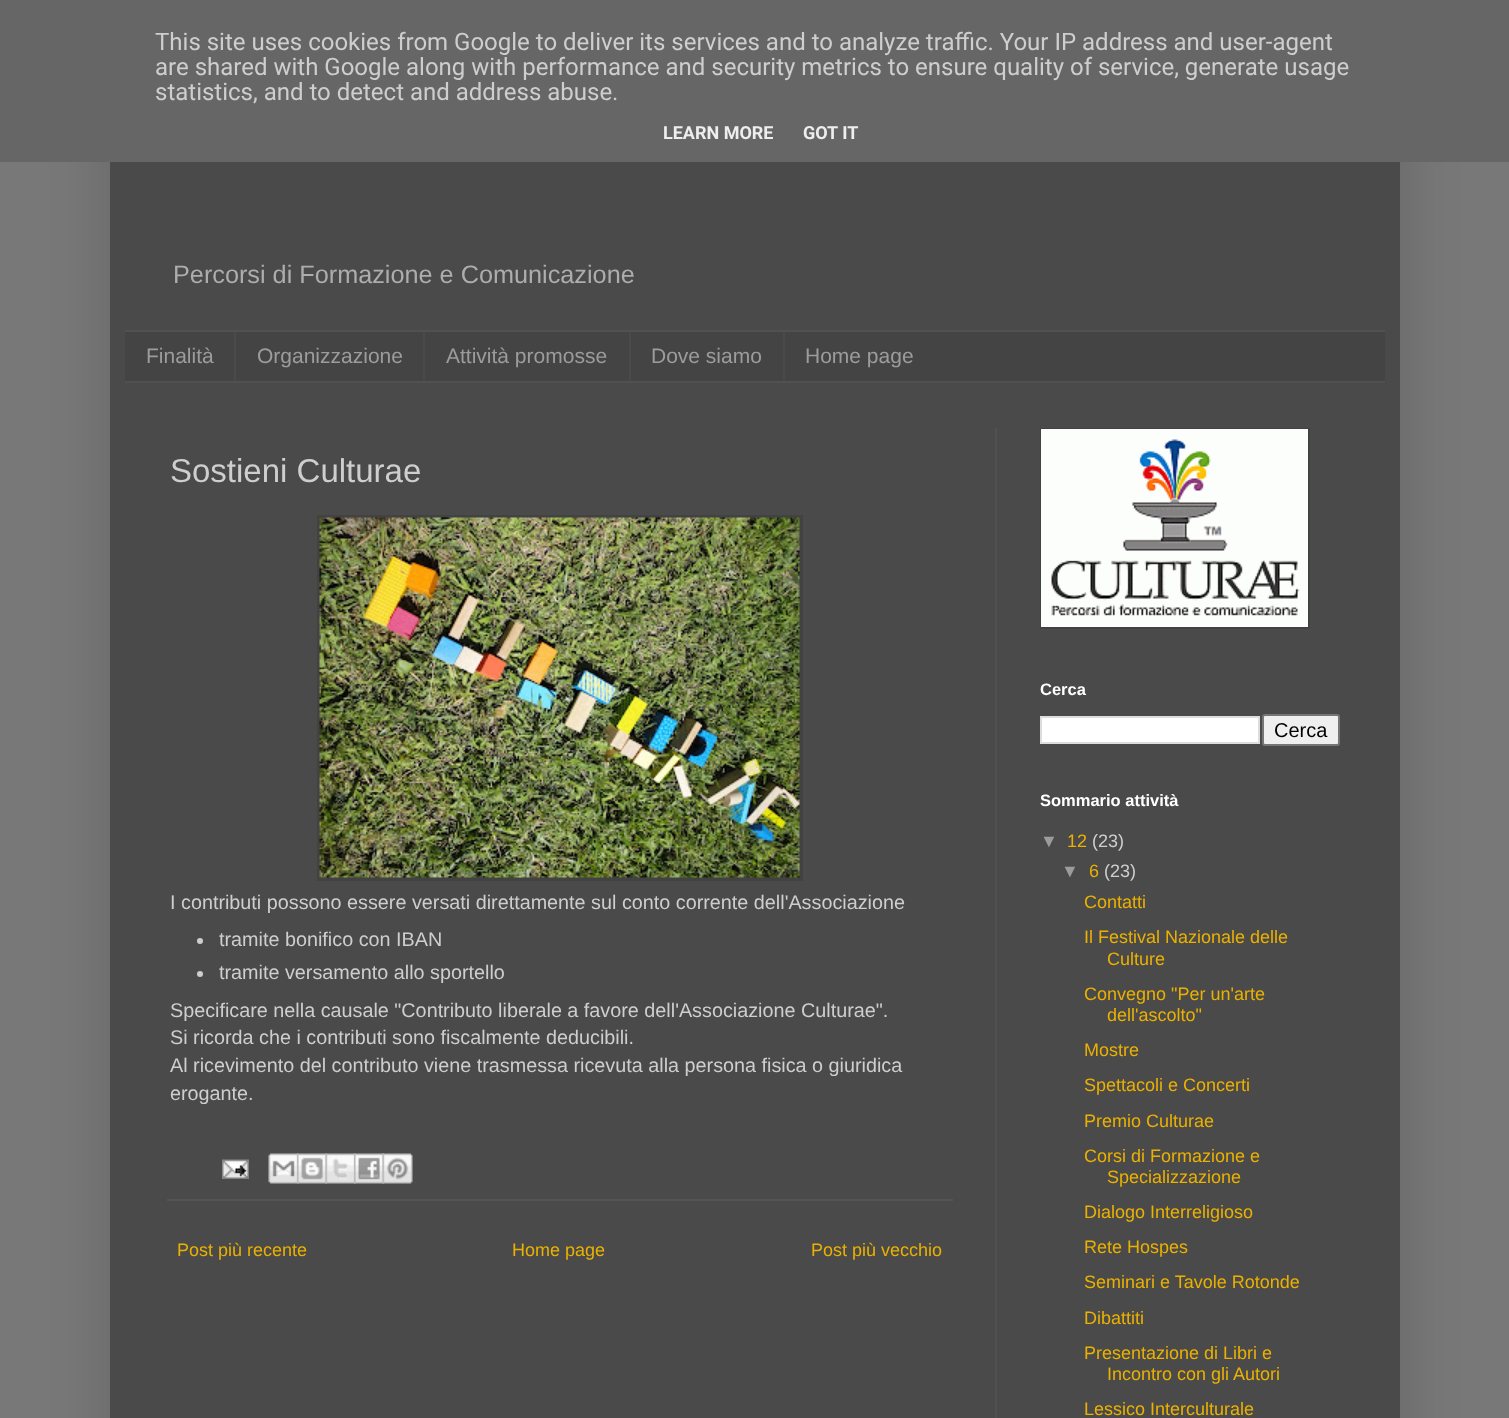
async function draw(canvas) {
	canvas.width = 1509;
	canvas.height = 1418;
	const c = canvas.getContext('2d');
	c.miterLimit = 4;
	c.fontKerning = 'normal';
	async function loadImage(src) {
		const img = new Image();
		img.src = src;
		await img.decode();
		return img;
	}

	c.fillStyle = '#787878';
	c.fillRect(0, 0, 1509, 1418);
	c.fillStyle = '#00000026';
	c.filter = 'blur(30px)';
	c.beginPath();
	c.rect(110, 45, 1290, 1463);
	c.fill();
	c.filter = 'none';
	c.fillStyle = '#666';
	c.fillRect(0, 0, 1509, 162);
	c.font = '24px Roboto';
	c.fillStyle = '#cecece';
	for (const [text, x, y] of [
		['This site uses cookies from Google to deliver its services and to analyze traffic. Your IP address and user-agent', 155, 50],
		['are shared with Google along with performance and security metrics to ensure quality of service, generate usage', 155, 75],
		['statistics, and to detect and address abuse.', 155, 100],
	]) {
		c.fillText(text, x, y);
	}
	c.font = 'bold 18px Roboto';
	c.fillStyle = '#eee';
	c.fillText('LEARN MORE', 663, 139);
	c.fillText('GOT IT', 803, 139);
	c.fillStyle = '#4a4a4a';
	c.fillRect(110, 162, 1290, 1256);
	c.font = '25.25px Liberation Sans';
	c.fillStyle = '#adadad';
	c.fillText('Percorsi di Formazione e Comunicazione', 173, 283);
	for (const [x, y, w, h, color] of [
		[125, 332, 1260, 49, '#444'],
		[125, 330, 1260, 2, '#515151'],
		[125, 381, 1260, 2, '#515151'],
	]) {
		c.fillStyle = color;
		c.fillRect(x, y, w, h);
	}
	c.font = '21px Liberation Sans';
	c.fillStyle = '#9c9c9c';
	c.fillText('Finalità', 146, 363);
	c.fillStyle = '#4a4a4a';
	c.fillRect(234, 332, 2, 49);
	c.fillStyle = '#9c9c9c';
	c.fillText('Organizzazione', 257, 363);
	c.fillStyle = '#4a4a4a';
	c.fillRect(423, 332, 2, 49);
	c.fillStyle = '#9c9c9c';
	c.fillText('Attività promosse', 446, 363);
	c.fillStyle = '#4a4a4a';
	c.fillRect(629, 332, 2, 49);
	c.fillStyle = '#9c9c9c';
	c.fillText('Dove siamo', 651, 363);
	c.fillStyle = '#4a4a4a';
	c.fillRect(783, 332, 2, 49);
	c.fillStyle = '#9c9c9c';
	c.fillText('Home page', 805, 363);
	c.fillStyle = '#515151';
	c.fillRect(995, 428, 2, 990);
	c.font = '33px Liberation Sans';
	c.fillStyle = '#cecece';
	c.fillText('Sostieni Culturae', 170, 482);
	c.fillStyle = '#424242';
	c.fillRect(317, 515, 486, 366);
	c.drawImage(await loadImage('img1.png'), 319, 517, 481, 361);
	c.font = '19.8px Liberation Sans';
	c.fillStyle = '#cecece';
	c.fillText('I contributi possono essere versati direttamente sul conto corrente dell\'Associazione', 170, 909);
	c.beginPath();
	c.arc(200, 941, 3, 0, 2 * Math.PI);
	c.fill();
	c.fillText('tramite bonifico con IBAN', 219, 946);
	c.beginPath();
	c.arc(200, 974, 3, 0, 2 * Math.PI);
	c.fill();
	for (const [text, x, y] of [
		['tramite versamento allo sportello', 219, 979],
		['Specificare nella causale "Contributo liberale a favore dell\'Associazione Culturae".', 170, 1017],
		['Si ricorda che i contributi sono fiscalmente deducibili.', 170, 1044],
		['Al ricevimento del contributo viene trasmessa ricevuta alla persona fisica o giuridica', 170, 1072],
		['erogante.', 170, 1100],
	]) {
		c.fillText(text, x, y);
	}
	c.fillStyle = '#545454';
	c.fillRect(167, 1199, 786, 2);
	c.drawImage(await loadImage('img2.png'), 222, 1159, 27, 20);
	c.drawImage(await loadImage('img3.png'), 268, 1153, 31, 31);
	c.drawImage(await loadImage('img4.png'), 297, 1153, 30, 31);
	c.drawImage(await loadImage('img5.png'), 325, 1153, 31, 31);
	c.drawImage(await loadImage('img6.png'), 354, 1153, 30, 31);
	c.drawImage(await loadImage('img7.png'), 382, 1153, 31, 31);
	c.font = '18px Liberation Sans';
	c.fillStyle = '#ebb100';
	for (const [text, x, y] of [
		['Post più recente', 177, 1256],
		['Home page', 512, 1256],
		['Post più vecchio', 811, 1256],
	]) {
		c.fillText(text, x, y);
	}
	c.fillStyle = '#424242';
	c.fillRect(1040, 428, 270, 201);
	c.drawImage(await loadImage('img8.png'), 1041, 429, 267, 198);
	c.font = 'bold 16.5px Liberation Sans';
	c.fillStyle = '#fff';
	c.fillText('Cerca', 1040, 695);
	c.beginPath();
	c.rect(1041, 717, 218, 26);
	c.fill();
	c.strokeStyle = '#ddd';
	c.lineWidth = 2;
	c.stroke();
	c.fillStyle = '#efefef';
	c.beginPath();
	c.roundRect(1263, 715, 76, 30, 2);
	c.fill();
	c.strokeStyle = '#767676';
	c.stroke();
	c.font = '20px Liberation Sans';
	c.fillStyle = '#000';
	c.fillText('Cerca', 1274, 737);
	c.font = 'bold 16.5px Liberation Sans';
	c.fillStyle = '#fff';
	c.fillText('Sommario attività', 1040, 806);
	c.font = '18px Liberation Sans';
	c.fillStyle = '#9c9c9c';
	c.fillText('▼', 1040, 847);
	c.fillStyle = '#ebb100';
	c.fillText('12', 1067, 847);
	c.fillStyle = '#cecece';
	c.fillText('(23)', 1092, 847);
	c.fillStyle = '#9c9c9c';
	c.fillText('▼', 1061, 877);
	c.fillStyle = '#ebb100';
	c.fillText('6', 1089, 877);
	c.fillStyle = '#cecece';
	c.fillText('(23)', 1104, 877);
	c.fillStyle = '#ebb100';
	for (const [text, x, y] of [
		['Contatti', 1084, 908],
		['Il Festival Nazionale delle', 1084, 943],
		['Culture', 1107, 965],
		['Convegno "Per un\'arte', 1084, 1000],
		['dell\'ascolto"', 1107, 1021],
		['Mostre', 1084, 1056],
		['Spettacoli e Concerti', 1084, 1091],
		['Premio Culturae', 1084, 1127],
		['Corsi di Formazione e', 1084, 1162],
		['Specializzazione', 1107, 1183],
		['Dialogo Interreligioso', 1084, 1218],
		['Rete Hospes', 1084, 1253],
		['Seminari e Tavole Rotonde', 1084, 1288],
		['Dibattiti', 1084, 1324],
		['Presentazione di Libri e', 1084, 1359],
		['Incontro con gli Autori', 1107, 1380],
		['Lessico Interculturale', 1084, 1415],
	]) {
		c.fillText(text, x, y);
	}
}

draw(document.querySelector('canvas'));
